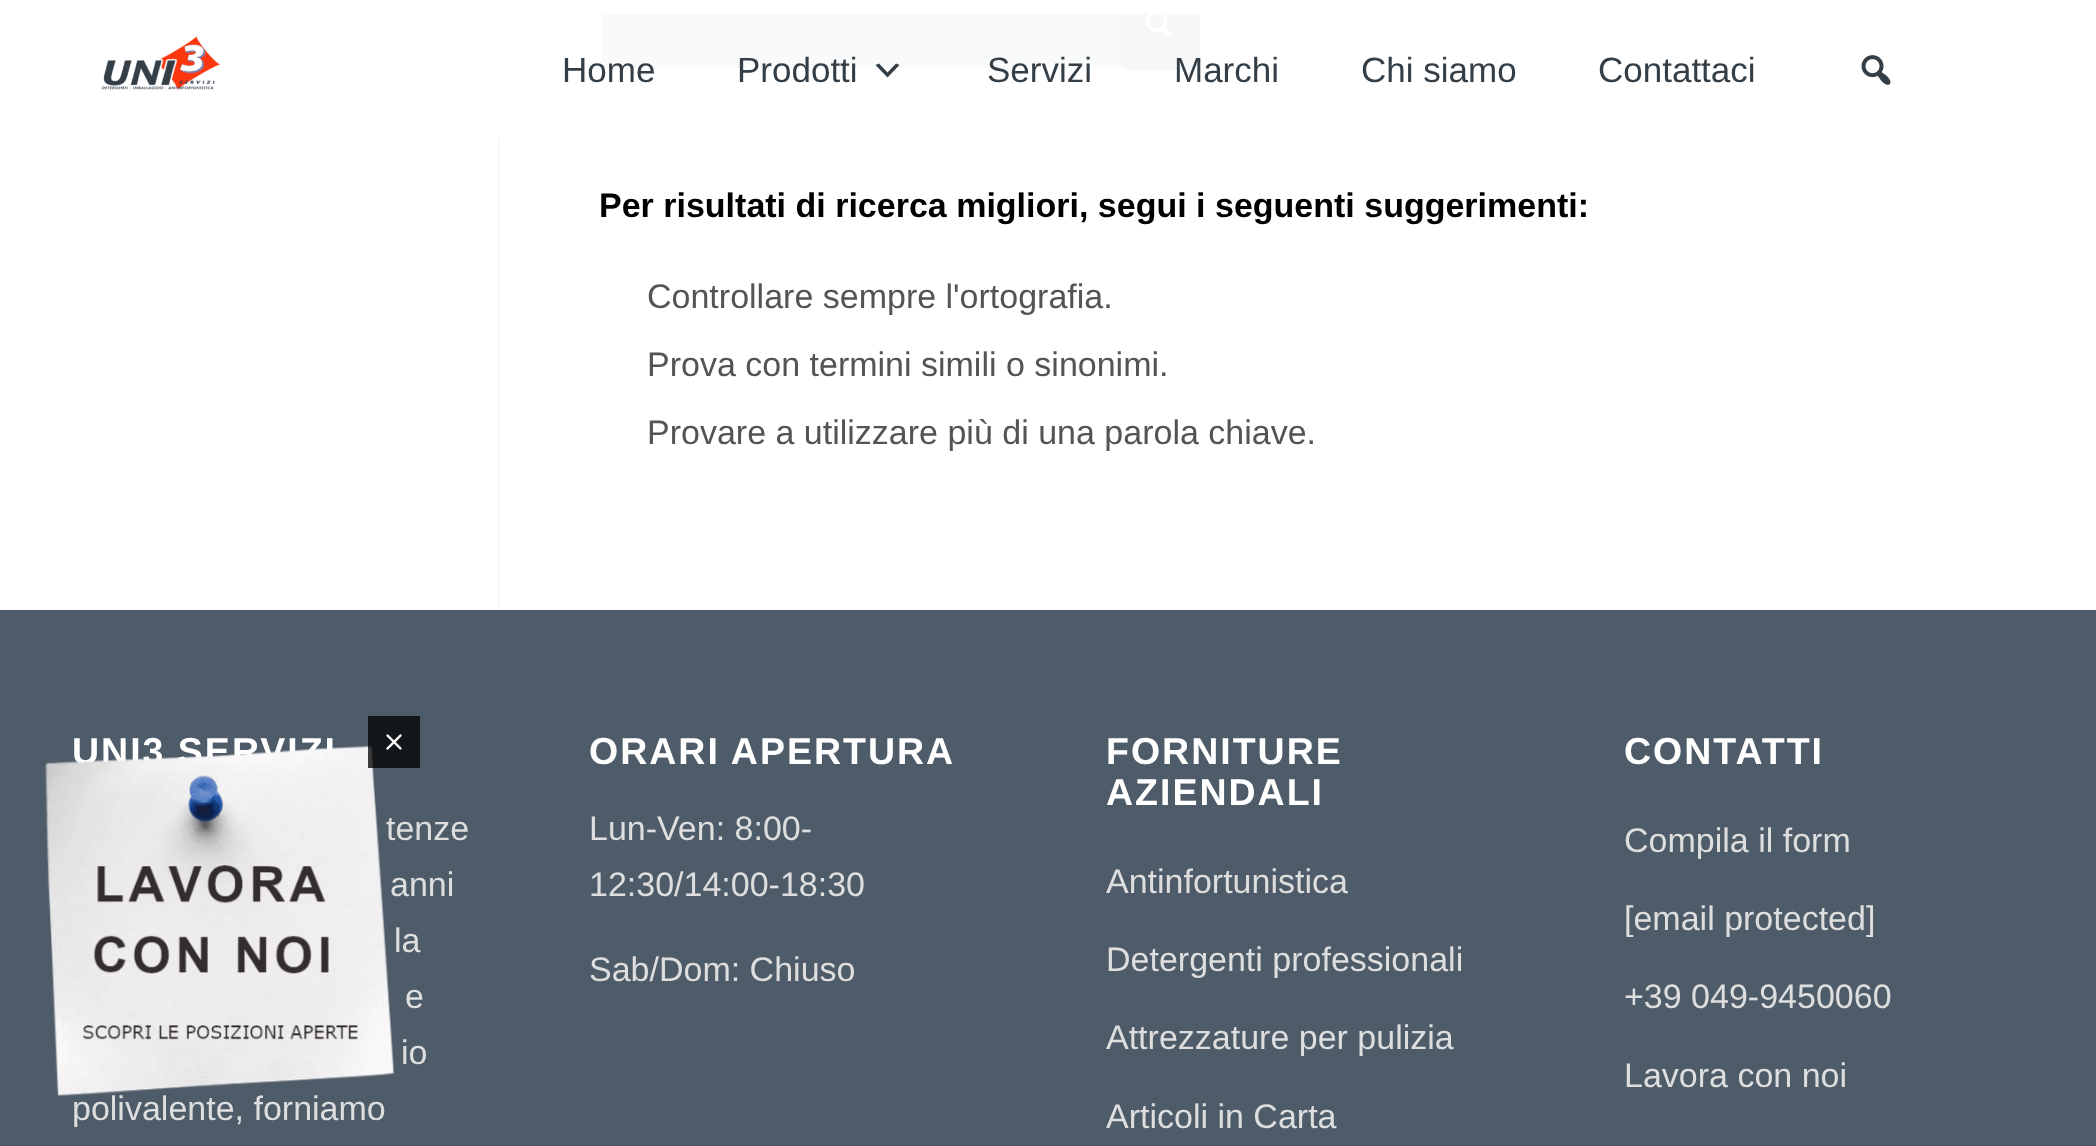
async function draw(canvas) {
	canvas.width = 2096;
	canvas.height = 1146;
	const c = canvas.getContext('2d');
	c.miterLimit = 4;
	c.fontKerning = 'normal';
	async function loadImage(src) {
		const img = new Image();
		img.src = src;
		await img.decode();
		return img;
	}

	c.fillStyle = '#fff';
	c.fillRect(0, 0, 2096, 1146);
	c.fillStyle = '#f9fafa';
	c.beginPath();
	c.moveTo(610, -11);
	c.lineTo(1199, -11);
	c.lineTo(1199, 69);
	c.lineTo(610, 69);
	c.bezierCurveTo(605, 69, 601, 65, 601, 60);
	c.lineTo(601, -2);
	c.bezierCurveTo(601, -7, 605, -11, 610, -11);
	c.closePath();
	c.fill();
	c.strokeStyle = '#fff';
	c.lineWidth = 2;
	c.stroke();
	c.fillStyle = '#f6f7f8';
	c.beginPath();
	c.roundRect(1120, -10, 80, 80, 10);
	c.fill();
	c.fillStyle = '#fff';
	c.fillRect(602, 0, 598, 14);
	c.drawImage(await loadImage('img1.png'), 101, 36, 119, 54);
	c.font = '35px Liberation Sans';
	c.fillStyle = '#343e46';
	c.fillText('Home', 562, 82);
	c.fillText('Prodotti', 737, 82);
	c.beginPath();
	c.moveTo(879, 63.5);
	c.lineTo(887.5, 72.5);
	c.lineTo(896, 63.5);
	c.lineTo(899.5, 65);
	c.lineTo(887.5, 77.5);
	c.lineTo(875.5, 65);
	c.closePath();
	c.fill();
	for (const [text, x, y] of [
		['Servizi', 987, 82],
		['Marchi', 1174, 82],
		['Chi siamo', 1361, 82],
		['Contattaci', 1598, 82],
	]) {
		c.fillText(text, x, y);
	}
	c.drawImage(await loadImage('img2.png'), 1861, 55, 30, 30);
	c.fillStyle = '#f8f8f8';
	c.fillRect(498, 138, 2, 470);
	c.drawImage(await loadImage('img3.png'), 1146, 14, 27, 24);
	c.font = 'bold 34px Liberation Sans';
	c.fillStyle = '#000';
	c.fillText('Per risultati di ricerca migliori, segui i seguenti suggerimenti:', 599, 217);
	c.font = '34px Liberation Sans';
	c.fillStyle = '#545454';
	for (const [text, x, y] of [
		['Controllare sempre l\'ortografia.', 647, 308],
		['Prova con termini simili o sinonimi.', 647, 376],
		['Provare a utilizzare più di una parola chiave.', 647, 444],
	]) {
		c.fillText(text, x, y);
	}
	c.fillStyle = '#4e5c6a';
	c.fillRect(0, 610, 2096, 536);
	c.fillStyle = '#fcfcfc';
	c.fillRect(0, 608, 2096, 2);
	c.letterSpacing = '2px';
	c.font = 'bold 37.5px Liberation Sans';
	c.fillStyle = '#fff';
	c.fillText('UNI3 SERVIZI', 72, 764);
	c.letterSpacing = '0px';
	c.font = '34px Liberation Sans';
	c.fillStyle = '#dedede';
	for (const [text, x, y] of [
		['tenze', 386, 840],
		['anni', 390, 896],
		['la', 394, 952],
		['e', 405, 1008],
		['io', 401, 1064],
		['polivalente, forniamo', 72, 1120],
	]) {
		c.fillText(text, x, y);
	}
	c.letterSpacing = '2px';
	c.font = 'bold 37.5px Liberation Sans';
	c.fillStyle = '#fff';
	c.fillText('ORARI APERTURA', 589, 764);
	c.letterSpacing = '0px';
	c.font = '34px Liberation Sans';
	c.fillStyle = '#dedede';
	for (const [text, x, y] of [
		['Lun-Ven: 8:00-', 589, 840],
		['12:30/14:00-18:30', 589, 896],
		['Sab/Dom: Chiuso', 589, 981],
	]) {
		c.fillText(text, x, y);
	}
	c.letterSpacing = '2px';
	c.font = 'bold 37.5px Liberation Sans';
	c.fillStyle = '#fff';
	c.fillText('FORNITURE', 1106, 764);
	c.fillText('AZIENDALI', 1106, 805);
	c.letterSpacing = '0px';
	c.font = '34px Liberation Sans';
	c.fillStyle = '#dedede';
	for (const [text, x, y] of [
		['Antinfortunistica', 1106, 893],
		['Detergenti professionali', 1106, 971],
		['Attrezzature per pulizia', 1106, 1049],
		['Articoli in Carta', 1106, 1128],
	]) {
		c.fillText(text, x, y);
	}
	c.letterSpacing = '2px';
	c.font = 'bold 37.5px Liberation Sans';
	c.fillStyle = '#fff';
	c.fillText('CONTATTI', 1624, 764);
	c.letterSpacing = '0px';
	c.font = '34px Liberation Sans';
	c.fillStyle = '#dedede';
	for (const [text, x, y] of [
		['Compila il form', 1624, 852],
		['[email protected]', 1624, 930],
		['+39 049-9450060', 1624, 1008],
		['Lavora con noi', 1624, 1087],
	]) {
		c.fillText(text, x, y);
	}
	c.drawImage(await loadImage('img5.png'), 45, 745, 350, 351);
	c.fillStyle = '#000000bf';
	c.fillRect(368, 716, 52, 52);
	c.drawImage(await loadImage('img4.png'), 386, 734, 16, 16);
}

draw(document.querySelector('canvas'));
